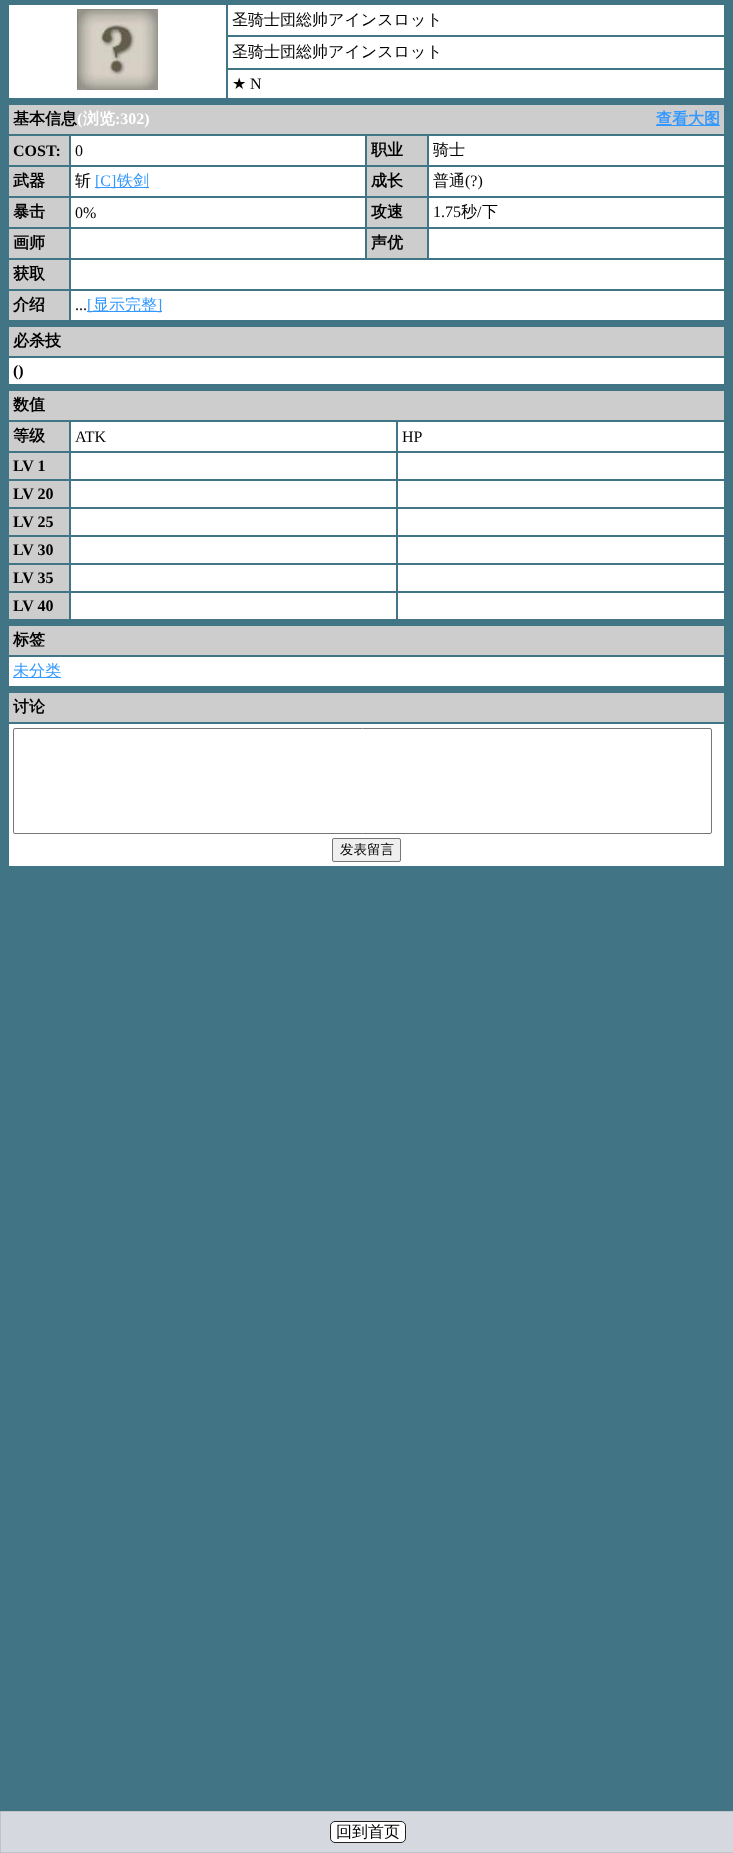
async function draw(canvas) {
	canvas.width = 733;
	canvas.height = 1853;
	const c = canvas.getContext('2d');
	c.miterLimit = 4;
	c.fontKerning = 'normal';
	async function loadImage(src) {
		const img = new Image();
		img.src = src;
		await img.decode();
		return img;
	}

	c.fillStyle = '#417485';
	c.fillRect(0, 0, 733, 1853);
	c.fillStyle = '#fff';
	c.fillRect(9, 5, 217, 93);
	c.drawImage(await loadImage('img1.png'), 77, 9, 81, 81);
	c.fillRect(228, 5, 496, 30);
	c.font = '500 16px WenQuanYi Zen Hei';
	c.fillStyle = '#000';
	c.fillText('圣骑士団総帅アインスロット', 232, 25);
	c.fillStyle = '#fff';
	c.fillRect(228, 37, 496, 31);
	c.fillStyle = '#000';
	c.fillText('圣骑士団総帅アインスロット', 232, 57);
	c.fillStyle = '#fff';
	c.fillRect(228, 70, 496, 28);
	c.font = '16px DejaVu Sans';
	c.fillStyle = '#000';
	c.fillText('★', 232, 89);
	c.font = '16px Liberation Serif';
	c.fillText('N', 250, 89);
	c.fillStyle = '#cdcdcd';
	c.fillRect(9, 105, 715, 29);
	c.font = 'bold 16px WenQuanYi Zen Hei';
	c.fillStyle = '#000';
	c.fillText('基本信息', 13, 124);
	c.font = 'bold 16px Liberation Serif';
	c.fillStyle = '#fff';
	c.fillText('(', 77, 124);
	c.font = 'bold 16px WenQuanYi Zen Hei';
	c.fillText('浏览', 83, 124);
	c.font = 'bold 16px Liberation Serif';
	c.fillText(':302)', 115, 124);
	c.fillStyle = '#39f';
	c.fillRect(656, 125, 64, 1);
	c.font = 'bold 16px WenQuanYi Zen Hei';
	c.fillText('查看大图', 656, 124);
	c.fillStyle = '#cdcdcd';
	c.fillRect(9, 136, 60, 29);
	c.font = 'bold 16px Liberation Serif';
	c.fillStyle = '#000';
	c.fillText('COST:', 13, 156);
	c.fillStyle = '#fff';
	c.fillRect(71, 136, 294, 29);
	c.font = '16px Liberation Serif';
	c.fillStyle = '#000';
	c.fillText('0', 75, 156);
	c.fillStyle = '#cdcdcd';
	c.fillRect(367, 136, 60, 29);
	c.font = 'bold 16px WenQuanYi Zen Hei';
	c.fillStyle = '#000';
	c.fillText('职业', 371, 155);
	c.fillStyle = '#fff';
	c.fillRect(429, 136, 295, 29);
	c.font = '500 16px WenQuanYi Zen Hei';
	c.fillStyle = '#000';
	c.fillText('骑士', 433, 155);
	c.fillStyle = '#cdcdcd';
	c.fillRect(9, 167, 60, 29);
	c.font = 'bold 16px WenQuanYi Zen Hei';
	c.fillStyle = '#000';
	c.fillText('武器', 13, 186);
	c.fillStyle = '#fff';
	c.fillRect(71, 167, 294, 29);
	c.font = '500 16px WenQuanYi Zen Hei';
	c.fillStyle = '#000';
	c.fillText('斩', 75, 186);
	c.fillStyle = '#39f';
	c.fillRect(95, 187, 54, 1);
	c.font = '16px Liberation Serif';
	c.fillText('[C]', 95, 186);
	c.font = '500 16px WenQuanYi Zen Hei';
	c.fillText('铁剑', 117, 186);
	c.fillStyle = '#cdcdcd';
	c.fillRect(367, 167, 60, 29);
	c.font = 'bold 16px WenQuanYi Zen Hei';
	c.fillStyle = '#000';
	c.fillText('成长', 371, 186);
	c.fillStyle = '#fff';
	c.fillRect(429, 167, 295, 29);
	c.font = '500 16px WenQuanYi Zen Hei';
	c.fillStyle = '#000';
	c.fillText('普通', 433, 186);
	c.font = '16px Liberation Serif';
	c.fillText('(?)', 465, 186);
	c.fillStyle = '#cdcdcd';
	c.fillRect(9, 198, 60, 29);
	c.font = 'bold 16px WenQuanYi Zen Hei';
	c.fillStyle = '#000';
	c.fillText('暴击', 13, 217);
	c.fillStyle = '#fff';
	c.fillRect(71, 198, 294, 29);
	c.font = '16px Liberation Serif';
	c.fillStyle = '#000';
	c.fillText('0%', 75, 218);
	c.fillStyle = '#cdcdcd';
	c.fillRect(367, 198, 60, 29);
	c.font = 'bold 16px WenQuanYi Zen Hei';
	c.fillStyle = '#000';
	c.fillText('攻速', 371, 217);
	c.fillStyle = '#fff';
	c.fillRect(429, 198, 295, 29);
	c.font = '16px Liberation Serif';
	c.fillStyle = '#000';
	c.fillText('1.75', 433, 217);
	c.font = '500 16px WenQuanYi Zen Hei';
	c.fillText('秒', 461, 217);
	c.font = '16px Liberation Serif';
	c.fillText('/', 477, 217);
	c.font = '500 16px WenQuanYi Zen Hei';
	c.fillText('下', 482, 217);
	c.fillStyle = '#cdcdcd';
	c.fillRect(9, 229, 60, 29);
	c.font = 'bold 16px WenQuanYi Zen Hei';
	c.fillStyle = '#000';
	c.fillText('画师', 13, 248);
	c.fillStyle = '#fff';
	c.fillRect(71, 229, 294, 29);
	c.fillStyle = '#cdcdcd';
	c.fillRect(367, 229, 60, 29);
	c.fillStyle = '#000';
	c.fillText('声优', 371, 248);
	c.fillStyle = '#fff';
	c.fillRect(429, 229, 295, 29);
	c.fillStyle = '#cdcdcd';
	c.fillRect(9, 260, 60, 29);
	c.fillStyle = '#000';
	c.fillText('获取', 13, 279);
	c.fillStyle = '#fff';
	c.fillRect(71, 260, 653, 29);
	c.fillStyle = '#cdcdcd';
	c.fillRect(9, 291, 60, 29);
	c.fillStyle = '#000';
	c.fillText('介绍', 13, 310);
	c.fillStyle = '#fff';
	c.fillRect(71, 291, 653, 29);
	c.font = '16px Liberation Serif';
	c.fillStyle = '#000';
	c.fillText('...', 75, 310);
	c.fillStyle = '#39f';
	c.fillRect(87, 311, 75, 1);
	c.fillText('[', 87, 310);
	c.font = '500 16px WenQuanYi Zen Hei';
	c.fillText('显示完整', 93, 310);
	c.font = '16px Liberation Serif';
	c.fillText(']', 157, 310);
	c.fillStyle = '#cdcdcd';
	c.fillRect(9, 327, 715, 29);
	c.font = 'bold 16px WenQuanYi Zen Hei';
	c.fillStyle = '#000';
	c.fillText('必杀技', 13, 346);
	c.fillStyle = '#fff';
	c.fillRect(9, 358, 715, 26);
	c.font = 'bold 16px Liberation Serif';
	c.fillStyle = '#000';
	c.fillText('()', 13, 376);
	c.fillStyle = '#cdcdcd';
	c.fillRect(9, 391, 715, 29);
	c.font = 'bold 16px WenQuanYi Zen Hei';
	c.fillStyle = '#000';
	c.fillText('数值', 13, 410);
	c.fillStyle = '#cdcdcd';
	c.fillRect(9, 422, 60, 29);
	c.fillStyle = '#000';
	c.fillText('等级', 13, 441);
	c.fillStyle = '#fff';
	c.fillRect(71, 422, 325, 29);
	c.font = '16px Liberation Serif';
	c.fillStyle = '#000';
	c.fillText('ATK', 75, 442);
	c.fillStyle = '#fff';
	c.fillRect(398, 422, 326, 29);
	c.fillStyle = '#000';
	c.fillText('HP', 402, 442);
	c.fillStyle = '#cdcdcd';
	c.fillRect(9, 453, 60, 26);
	c.font = 'bold 16px Liberation Serif';
	c.fillStyle = '#000';
	c.fillText('LV 1', 13, 471);
	for (const [x, y, w, h, color] of [
		[71, 453, 325, 26, '#fff'],
		[398, 453, 326, 26, '#fff'],
		[9, 481, 60, 26, '#cdcdcd'],
	]) {
		c.fillStyle = color;
		c.fillRect(x, y, w, h);
	}
	c.fillStyle = '#000';
	c.fillText('LV 20', 13, 499);
	for (const [x, y, w, h, color] of [
		[71, 481, 325, 26, '#fff'],
		[398, 481, 326, 26, '#fff'],
		[9, 509, 60, 26, '#cdcdcd'],
	]) {
		c.fillStyle = color;
		c.fillRect(x, y, w, h);
	}
	c.fillStyle = '#000';
	c.fillText('LV 25', 13, 527);
	for (const [x, y, w, h, color] of [
		[71, 509, 325, 26, '#fff'],
		[398, 509, 326, 26, '#fff'],
		[9, 537, 60, 26, '#cdcdcd'],
	]) {
		c.fillStyle = color;
		c.fillRect(x, y, w, h);
	}
	c.fillStyle = '#000';
	c.fillText('LV 30', 13, 555);
	for (const [x, y, w, h, color] of [
		[71, 537, 325, 26, '#fff'],
		[398, 537, 326, 26, '#fff'],
		[9, 565, 60, 26, '#cdcdcd'],
	]) {
		c.fillStyle = color;
		c.fillRect(x, y, w, h);
	}
	c.fillStyle = '#000';
	c.fillText('LV 35', 13, 583);
	for (const [x, y, w, h, color] of [
		[71, 565, 325, 26, '#fff'],
		[398, 565, 326, 26, '#fff'],
		[9, 593, 60, 26, '#cdcdcd'],
	]) {
		c.fillStyle = color;
		c.fillRect(x, y, w, h);
	}
	c.fillStyle = '#000';
	c.fillText('LV 40', 13, 611);
	for (const [x, y, w, h, color] of [
		[71, 593, 325, 26, '#fff'],
		[398, 593, 326, 26, '#fff'],
		[9, 626, 715, 29, '#cdcdcd'],
	]) {
		c.fillStyle = color;
		c.fillRect(x, y, w, h);
	}
	c.font = 'bold 16px WenQuanYi Zen Hei';
	c.fillStyle = '#000';
	c.fillText('标签', 13, 645);
	c.fillStyle = '#fff';
	c.fillRect(9, 657, 715, 29);
	c.fillStyle = '#39f';
	c.fillRect(13, 677, 48, 1);
	c.font = '500 16px WenQuanYi Zen Hei';
	c.fillText('未分类', 13, 676);
	c.fillStyle = '#cdcdcd';
	c.fillRect(9, 693, 715, 29);
	c.font = 'bold 16px WenQuanYi Zen Hei';
	c.fillStyle = '#000';
	c.fillText('讨论', 13, 712);
	c.fillStyle = '#fff';
	c.fillRect(9, 724, 715, 142);
	c.beginPath();
	c.roundRect(13.5, 728.5, 698, 105, 1.5);
	c.strokeStyle = '#767676';
	c.stroke();
	c.fillStyle = '#efefef';
	c.beginPath();
	c.roundRect(332.5, 838.5, 68, 23, 1.5);
	c.fill();
	c.stroke();
	c.font = '500 13.5px WenQuanYi Zen Hei';
	c.fillStyle = '#000';
	c.fillText('发表留言', 340, 854);
	c.fillStyle = '#d5d8de';
	c.beginPath();
	c.rect(0.5, 1811.5, 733, 41);
	c.fill();
	c.strokeStyle = '#c0c3c9';
	c.stroke();
	c.fillStyle = '#fff';
	c.beginPath();
	c.roundRect(330.5, 1821.5, 75, 21, 4.5);
	c.fill();
	c.strokeStyle = '#222';
	c.stroke();
	c.font = '500 16px WenQuanYi Zen Hei';
	c.fillStyle = '#000';
	c.fillText('回到首页', 336, 1837);
}

draw(document.querySelector('canvas'));
